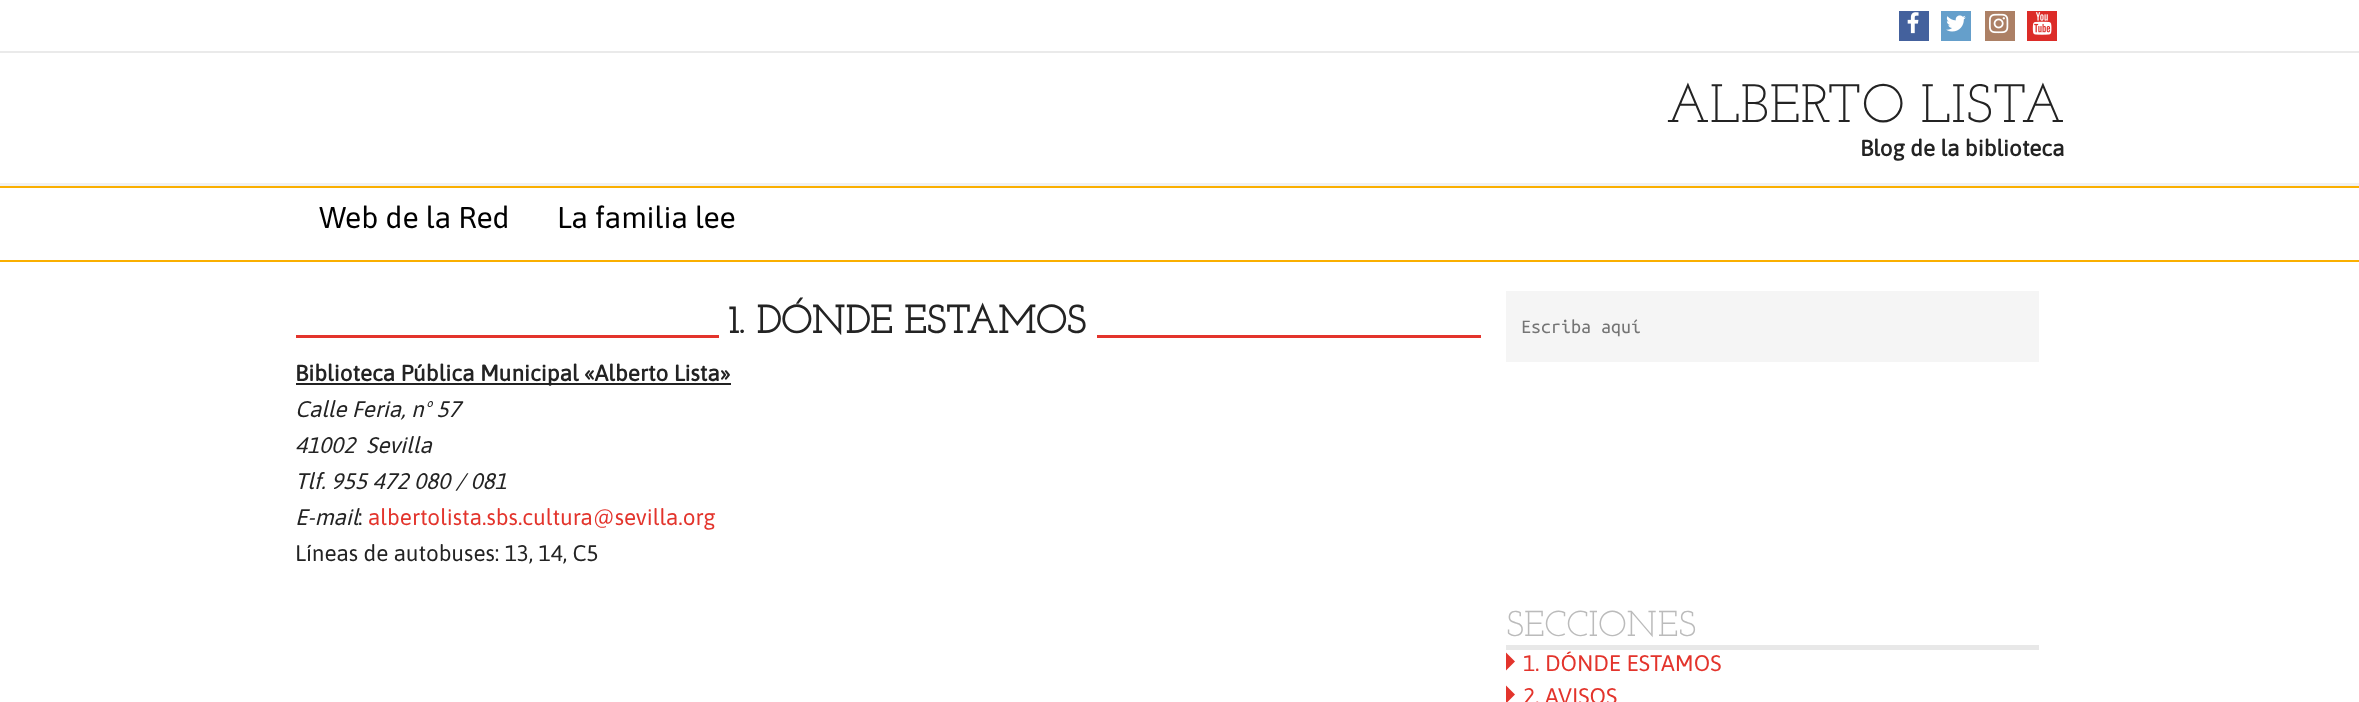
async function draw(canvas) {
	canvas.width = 2359;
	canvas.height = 702;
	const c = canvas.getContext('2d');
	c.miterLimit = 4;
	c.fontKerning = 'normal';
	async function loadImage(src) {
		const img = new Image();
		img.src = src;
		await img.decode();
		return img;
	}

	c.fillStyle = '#fff';
	c.fillRect(0, 0, 2359, 702);
	c.fillStyle = '#44619d';
	c.fillRect(1899, 11, 30, 30);
	c.drawImage(await loadImage('img1.png'), 1907, 12, 12, 22);
	c.fillStyle = '#659fcb';
	c.fillRect(1941, 11, 30, 30);
	c.drawImage(await loadImage('img2.png'), 1946, 15, 20, 17);
	c.fillStyle = '#ac8065';
	c.fillRect(1985, 11, 30, 30);
	c.drawImage(await loadImage('img3.png'), 1989, 13, 20, 21);
	c.fillStyle = '#dc2c28';
	c.fillRect(2027, 11, 30, 30);
	c.drawImage(await loadImage('img4.png'), 2032, 12, 20, 23);
	c.fillStyle = '#eaeaea';
	c.fillRect(0, 51, 2359, 2);
	c.font = '100 54px Josefin Slab';
	c.fillStyle = '#232323';
	c.fillText('ALBERTO LISTA', 1666, 122);
	c.font = 'bold 22.5px Asap';
	c.fillText('Blog de la biblioteca', 1860, 156);
	for (const [x, y, w, h, color] of [
		[0, 183, 2359, 3, '#f1f1f1'],
		[0, 186, 2359, 2, '#faaf00'],
		[0, 260, 2359, 2, '#faaf00'],
	]) {
		c.fillStyle = color;
		c.fillRect(x, y, w, h);
	}
	c.font = '30px Asap';
	c.fillStyle = '#000';
	c.fillText('Web de la Red', 319, 228);
	c.fillText('La familia lee', 557, 228);
	c.fillStyle = '#e3342c';
	c.fillRect(296, 335, 1185, 3);
	c.font = 'bold 39px Josefin Slab';
	c.fillStyle = '#232323';
	c.fillText('1. DÓNDE ESTAMOS', 728, 333);
	c.fillStyle = '#fff';
	c.fillRect(719, 335, 378, 3);
	c.fillStyle = '#232323';
	c.fillRect(296, 383, 435, 2);
	c.font = 'bold 22.5px Asap';
	c.fillText('Biblioteca Pública Municipal «Alberto Lista»', 295, 381);
	c.font = 'italic 22.5px Asap';
	for (const [text, x, y] of [
		['Calle Feria, nº 57', 295, 417],
		['41002  Sevilla', 295, 453],
		['Tlf. 955 472 080 / 081', 295, 489],
		['E-mail', 295, 525],
	]) {
		c.fillText(text, x, y);
	}
	c.font = '22.5px Asap';
	c.fillText(':', 358, 525);
	c.fillStyle = '#e3342c';
	c.fillText('albertolista.sbs.cultura@sevilla.org', 368, 525);
	c.fillStyle = '#232323';
	c.fillText('Líneas de autobuses: 13, 14, C5', 295, 561);
	c.fillStyle = '#f5f5f5';
	c.fillRect(1506, 291, 533, 71);
	c.font = '20px Ubuntu Mono';
	c.fillStyle = '#757575';
	c.fillText('Escriba aquí', 1521, 333);
	c.fillStyle = '#e8e8e8';
	c.fillRect(1506, 645, 533, 5);
	c.font = '100 36px Josefin Slab';
	c.fillStyle = '#bbb';
	c.fillText('SECCIONES', 1506, 636);
	c.fillStyle = '#e3342c';
	c.beginPath();
	c.moveTo(1506, 670.5);
	c.lineTo(1506, 652.5);
	c.lineTo(1515, 661.5);
	c.closePath();
	c.fill();
	c.font = '22.5px Asap';
	c.fillText('1. DÓNDE ESTAMOS', 1523, 671);
	c.beginPath();
	c.moveTo(1506, 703.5);
	c.lineTo(1506, 685.5);
	c.lineTo(1515, 694.5);
	c.closePath();
	c.fill();
	c.fillText('2. AVISOS', 1523, 704);
}

draw(document.querySelector('canvas'));
